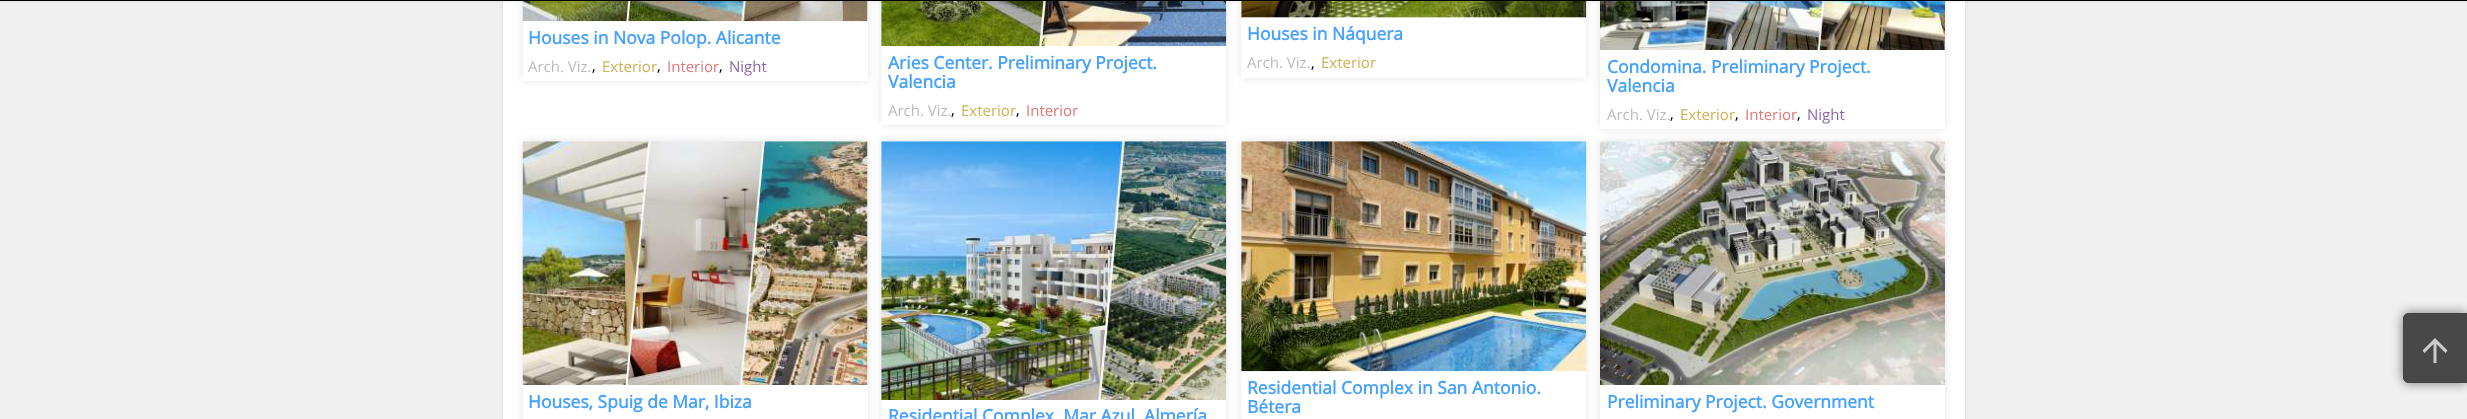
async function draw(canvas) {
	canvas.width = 2467;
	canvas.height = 419;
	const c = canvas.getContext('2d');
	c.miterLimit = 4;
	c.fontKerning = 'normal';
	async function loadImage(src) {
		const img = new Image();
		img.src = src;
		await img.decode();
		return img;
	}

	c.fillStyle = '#f0f0f0';
	c.fillRect(0, 0, 2467, 419);
	c.fillStyle = '#0000001a';
	c.filter = 'blur(2px)';
	c.beginPath();
	c.rect(503, -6, 1462, 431);
	c.fill();
	c.filter = 'none';
	c.fillStyle = '#fff';
	c.fillRect(503, 1, 1462, 418);
	c.save();
	c.beginPath();
	c.moveTo(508, 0);
	c.lineTo(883, 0);
	c.lineTo(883, 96);
	c.lineTo(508, 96);
	c.closePath();
	c.moveTo(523, -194);
	c.lineTo(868, -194);
	c.lineTo(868, 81);
	c.lineTo(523, 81);
	c.closePath();
	c.clip('evenodd');
	c.fillStyle = '#0000001a';
	c.filter = 'blur(4.5px)';
	c.beginPath();
	c.rect(523, -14, 345, 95);
	c.fill();
	c.filter = 'none';
	c.restore();
	c.save();
	c.beginPath();
	c.moveTo(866, 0);
	c.lineTo(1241, 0);
	c.lineTo(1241, 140);
	c.lineTo(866, 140);
	c.closePath();
	c.moveTo(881, -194);
	c.lineTo(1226, -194);
	c.lineTo(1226, 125);
	c.lineTo(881, 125);
	c.closePath();
	c.clip('evenodd');
	c.fillStyle = '#0000001a';
	c.filter = 'blur(4.5px)';
	c.beginPath();
	c.rect(881, -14, 345, 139);
	c.fill();
	c.filter = 'none';
	c.restore();
	c.fillStyle = '#0000000d';
	c.fillRect(867, 1, 1, 20);
	c.drawImage(await loadImage('img1.png'), 522, 1, 346, 21);
	c.fillRect(881, 1, 1, 45);
	c.save();
	c.beginPath();
	c.moveTo(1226, 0);
	c.lineTo(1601, 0);
	c.lineTo(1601, 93);
	c.lineTo(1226, 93);
	c.closePath();
	c.moveTo(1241, -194);
	c.lineTo(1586, -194);
	c.lineTo(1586, 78);
	c.lineTo(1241, 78);
	c.closePath();
	c.clip('evenodd');
	c.fillStyle = '#0000001a';
	c.filter = 'blur(4.5px)';
	c.beginPath();
	c.rect(1241, -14, 345, 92);
	c.fill();
	c.filter = 'none';
	c.restore();
	c.drawImage(await loadImage('img2.png'), 881, 1, 346, 46);
	c.save();
	c.beginPath();
	c.moveTo(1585, 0);
	c.lineTo(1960, 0);
	c.lineTo(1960, 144);
	c.lineTo(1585, 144);
	c.closePath();
	c.moveTo(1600, -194);
	c.lineTo(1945, -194);
	c.lineTo(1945, 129);
	c.lineTo(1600, 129);
	c.closePath();
	c.clip('evenodd');
	c.fillStyle = '#0000001a';
	c.filter = 'blur(4.5px)';
	c.beginPath();
	c.rect(1600, -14, 345, 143);
	c.fill();
	c.filter = 'none';
	c.restore();
	c.fillRect(1241, 1, 345, 17);
	c.drawImage(await loadImage('img3.png'), 1241, 1, 346, 17);
	c.drawImage(await loadImage('img4.png'), 1600, 1, 345, 49);
	c.fillStyle = '#0000001a';
	c.filter = 'blur(1px)';
	c.beginPath();
	c.rect(0, 1, 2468, 1);
	c.fill();
	c.filter = 'none';
	c.fillStyle = '#000';
	c.fillRect(0, 0, 2467, 1);
	c.font = 'bold 17.5px Open Sans';
	c.fillStyle = '#45a1ff';
	c.fillText('Houses in Nova Polop. Alicante', 528, 44);
	c.font = '15px Open Sans';
	c.fillStyle = '#bbb';
	c.fillText('Arch. Viz.', 528, 72);
	c.fillStyle = '#000';
	c.fillText(',', 592, 71);
	c.fillStyle = '#d0b055';
	c.fillText('Exterior', 602, 72);
	c.fillStyle = '#000';
	c.fillText(',', 657, 71);
	c.fillStyle = '#d77';
	c.fillText('Interior', 667, 72);
	c.fillStyle = '#000';
	c.fillText(',', 719, 71);
	c.fillStyle = '#86a';
	c.fillText('Night', 729, 72);
	c.font = 'bold 17.5px Open Sans';
	c.fillStyle = '#45a1ff';
	c.fillText('Aries Center. Preliminary Project.', 888, 69);
	c.fillText('Valencia', 888, 88);
	c.font = '15px Open Sans';
	c.fillStyle = '#bbb';
	c.fillText('Arch. Viz.', 888, 116);
	c.fillStyle = '#000';
	c.fillText(',', 951, 115);
	c.fillStyle = '#d0b055';
	c.fillText('Exterior', 961, 116);
	c.fillStyle = '#000';
	c.fillText(',', 1016, 115);
	c.fillStyle = '#d77';
	c.fillText('Interior', 1026, 116);
	c.font = 'bold 17.5px Open Sans';
	c.fillStyle = '#45a1ff';
	c.fillText('Houses in Náquera', 1247, 40);
	c.font = '15px Open Sans';
	c.fillStyle = '#bbb';
	c.fillText('Arch. Viz.', 1247, 68);
	c.fillStyle = '#000';
	c.fillText(',', 1311, 68);
	c.fillStyle = '#d0b055';
	c.fillText('Exterior', 1321, 68);
	c.font = 'bold 17.5px Open Sans';
	c.fillStyle = '#45a1ff';
	c.fillText('Condomina. Preliminary Project.', 1607, 73);
	c.fillText('Valencia', 1607, 92);
	c.font = '15px Open Sans';
	c.fillStyle = '#bbb';
	c.fillText('Arch. Viz.', 1607, 120);
	c.fillStyle = '#000';
	c.fillText(',', 1670, 119);
	c.fillStyle = '#d0b055';
	c.fillText('Exterior', 1680, 120);
	c.fillStyle = '#000';
	c.fillText(',', 1735, 119);
	c.fillStyle = '#d77';
	c.fillText('Interior', 1745, 120);
	c.fillStyle = '#000';
	c.fillText(',', 1797, 119);
	c.fillStyle = '#86a';
	c.fillText('Night', 1807, 120);
	c.save();
	c.beginPath();
	c.moveTo(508, 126);
	c.lineTo(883, 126);
	c.lineTo(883, 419);
	c.lineTo(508, 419);
	c.closePath();
	c.moveTo(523, 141);
	c.lineTo(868, 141);
	c.lineTo(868, 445);
	c.lineTo(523, 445);
	c.closePath();
	c.clip('evenodd');
	c.fillStyle = '#0000001a';
	c.filter = 'blur(4.5px)';
	c.beginPath();
	c.rect(523, 141, 345, 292);
	c.fill();
	c.filter = 'none';
	c.restore();
	c.save();
	c.beginPath();
	c.moveTo(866, 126);
	c.lineTo(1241, 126);
	c.lineTo(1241, 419);
	c.lineTo(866, 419);
	c.closePath();
	c.moveTo(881, 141);
	c.lineTo(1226, 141);
	c.lineTo(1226, 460);
	c.lineTo(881, 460);
	c.closePath();
	c.clip('evenodd');
	c.fillStyle = '#0000001a';
	c.filter = 'blur(4.5px)';
	c.beginPath();
	c.rect(881, 141, 345, 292);
	c.fill();
	c.filter = 'none';
	c.restore();
	c.fillStyle = '#0000000d';
	c.fillRect(523, 141, 345, 244);
	c.drawImage(await loadImage('img5.png'), 522, 141, 346, 244);
	c.font = 'bold 17.5px Open Sans';
	c.fillStyle = '#45a1ff';
	c.fillText('Houses, Spuig de Mar, Ibiza', 528, 408);
	c.fillStyle = '#0000000d';
	c.fillRect(881, 141, 345, 259);
	c.save();
	c.beginPath();
	c.moveTo(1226, 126);
	c.lineTo(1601, 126);
	c.lineTo(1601, 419);
	c.lineTo(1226, 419);
	c.closePath();
	c.moveTo(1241, 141);
	c.lineTo(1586, 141);
	c.lineTo(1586, 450);
	c.lineTo(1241, 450);
	c.closePath();
	c.clip('evenodd');
	c.fillStyle = '#0000001a';
	c.filter = 'blur(4.5px)';
	c.beginPath();
	c.rect(1241, 141, 345, 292);
	c.fill();
	c.filter = 'none';
	c.restore();
	c.drawImage(await loadImage('img6.png'), 881, 141, 346, 259);
	c.fillStyle = '#45a1ff';
	c.fillText('Residential Complex. Mar Azul. Almería', 888, 422);
	c.save();
	c.beginPath();
	c.moveTo(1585, 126);
	c.lineTo(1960, 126);
	c.lineTo(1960, 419);
	c.lineTo(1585, 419);
	c.closePath();
	c.moveTo(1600, 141);
	c.lineTo(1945, 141);
	c.lineTo(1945, 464);
	c.lineTo(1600, 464);
	c.closePath();
	c.clip('evenodd');
	c.fillStyle = '#0000001a';
	c.filter = 'blur(4.5px)';
	c.beginPath();
	c.rect(1600, 141, 345, 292);
	c.fill();
	c.filter = 'none';
	c.restore();
	c.fillStyle = '#0000000d';
	c.fillRect(1241, 141, 345, 230);
	c.drawImage(await loadImage('img7.png'), 1241, 141, 346, 231);
	c.fillStyle = '#45a1ff';
	c.fillText('Residential Complex in San Antonio.', 1247, 394);
	c.fillText('Bétera', 1247, 413);
	c.fillStyle = '#0000000d';
	c.fillRect(1600, 141, 345, 1);
	c.drawImage(await loadImage('img8.png'), 1600, 141, 345, 244);
	c.fillStyle = '#45a1ff';
	c.fillText('Preliminary Project. Government', 1607, 408);
	c.save();
	c.beginPath();
	c.moveTo(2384, 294);
	c.lineTo(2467, 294);
	c.lineTo(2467, 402);
	c.lineTo(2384, 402);
	c.closePath();
	c.moveTo(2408, 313);
	c.lineTo(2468, 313);
	c.lineTo(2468, 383);
	c.lineTo(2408, 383);
	c.bezierCurveTo(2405, 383, 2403, 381, 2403, 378);
	c.lineTo(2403, 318);
	c.bezierCurveTo(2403, 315, 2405, 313, 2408, 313);
	c.closePath();
	c.clip('evenodd');
	c.fillStyle = '#00000080';
	c.filter = 'blur(6px)';
	c.beginPath();
	c.roundRect(2403, 313, 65, 70, 5);
	c.fill();
	c.filter = 'none';
	c.restore();
	c.fillStyle = '#000000b3';
	c.beginPath();
	c.moveTo(2408, 313.5);
	c.lineTo(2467.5, 313.5);
	c.lineTo(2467.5, 382.5);
	c.lineTo(2408, 382.5);
	c.bezierCurveTo(2405.5, 382.5, 2403.5, 380.5, 2403.5, 378);
	c.lineTo(2403.5, 318);
	c.bezierCurveTo(2403.5, 315.5, 2405.5, 313.5, 2408, 313.5);
	c.closePath();
	c.fill();
	c.strokeStyle = '#444';
	c.stroke();
	c.fillStyle = '#ccc';
	c.beginPath();
	c.moveTo(2422.5, 350.5);
	c.lineTo(2435, 338);
	c.lineTo(2447.5, 350.5);
	c.lineTo(2445.5, 353);
	c.lineTo(2436.5, 344);
	c.lineTo(2436.5, 363);
	c.lineTo(2433.5, 363);
	c.lineTo(2433.5, 344);
	c.lineTo(2424.5, 353);
	c.closePath();
	c.fill();
}

draw(document.querySelector('canvas'));
